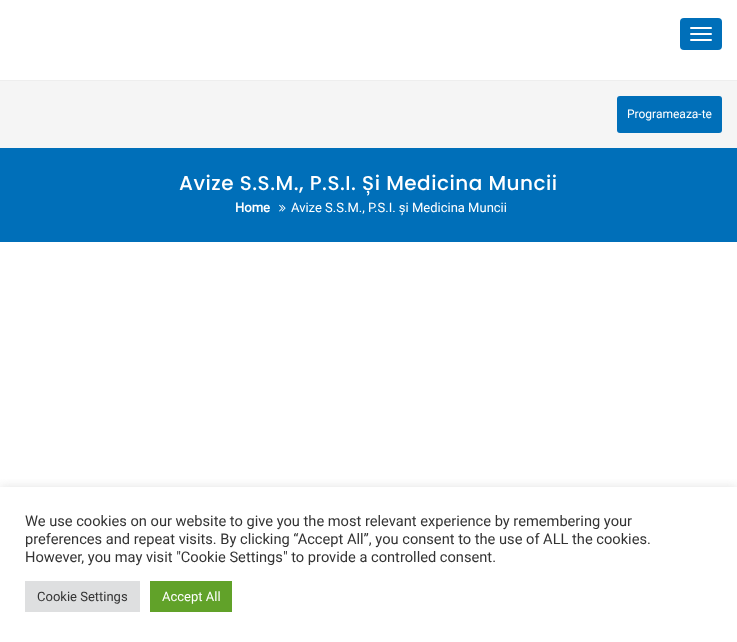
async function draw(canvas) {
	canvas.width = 737;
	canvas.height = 642;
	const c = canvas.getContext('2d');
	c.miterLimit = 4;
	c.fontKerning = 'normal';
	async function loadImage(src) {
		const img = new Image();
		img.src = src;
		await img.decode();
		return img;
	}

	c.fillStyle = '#fff';
	c.fillRect(0, 0, 737, 642);
	c.fillStyle = '#eee';
	c.fillRect(0, 80, 737, 1);
	c.fillStyle = '#006fb9';
	c.beginPath();
	c.roundRect(680, 18, 42, 32, 4);
	c.fill();
	c.fillStyle = '#fff';
	c.beginPath();
	c.roundRect(690, 27, 22, 2, 1);
	c.fill();
	c.beginPath();
	c.roundRect(690, 33, 22, 2, 1);
	c.fill();
	c.beginPath();
	c.roundRect(690, 39, 22, 2, 1);
	c.fill();
	c.fillStyle = '#f5f5f5';
	c.fillRect(0, 81, 737, 67);
	c.fillStyle = '#006fb9';
	c.beginPath();
	c.roundRect(617, 96, 105, 37, 3);
	c.fill();
	c.font = '12px Roboto';
	c.fillStyle = '#fff';
	c.fillText('Programeaza-te', 627, 118);
	c.fillStyle = '#006fb9';
	c.fillRect(0, 148, 737, 94);
	c.letterSpacing = '0.5px';
	c.font = '500 20px Poppins';
	c.fillStyle = '#fff';
	c.fillText('Avize S.S.M., P.S.I. Și Medicina Muncii', 179, 190);
	c.letterSpacing = '0px';
	c.font = 'bold 13px Roboto';
	c.fillText('Home', 235, 212);
	c.drawImage(await loadImage('img1.png'), 279, 204, 7, 8);
	c.font = '13px Roboto';
	c.fillText('Avize S.S.M., P.S.I. și Medicina Muncii', 291, 212);
	c.save();
	c.beginPath();
	c.rect(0, 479, 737, 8);
	c.clip();
	c.fillStyle = '#acabab4d';
	c.filter = 'blur(5px)';
	c.beginPath();
	c.rect(0, 486, 737, 155);
	c.fill();
	c.filter = 'none';
	c.restore();
	c.font = '14.65px Roboto';
	c.fillStyle = '#333';
	for (const [text, x, y] of [
		['We use cookies on our website to give you the most relevant experience by remembering your', 25, 526],
		['preferences and repeat visits. By clicking “Accept All”, you consent to the use of ALL the cookies.', 25, 544],
		['However, you may visit "Cookie Settings" to provide a controlled consent.', 25, 562],
	]) {
		c.fillText(text, x, y);
	}
	c.fillStyle = '#dedfe0';
	c.fillRect(25, 581, 115, 31);
	c.font = '13px Roboto';
	c.fillStyle = '#333';
	c.fillText('Cookie Settings', 37, 601);
	c.fillStyle = '#61a229';
	c.fillRect(150, 581, 82, 31);
	c.fillStyle = '#fff';
	c.fillText('Accept All', 162, 601);
}

draw(document.querySelector('canvas'));
